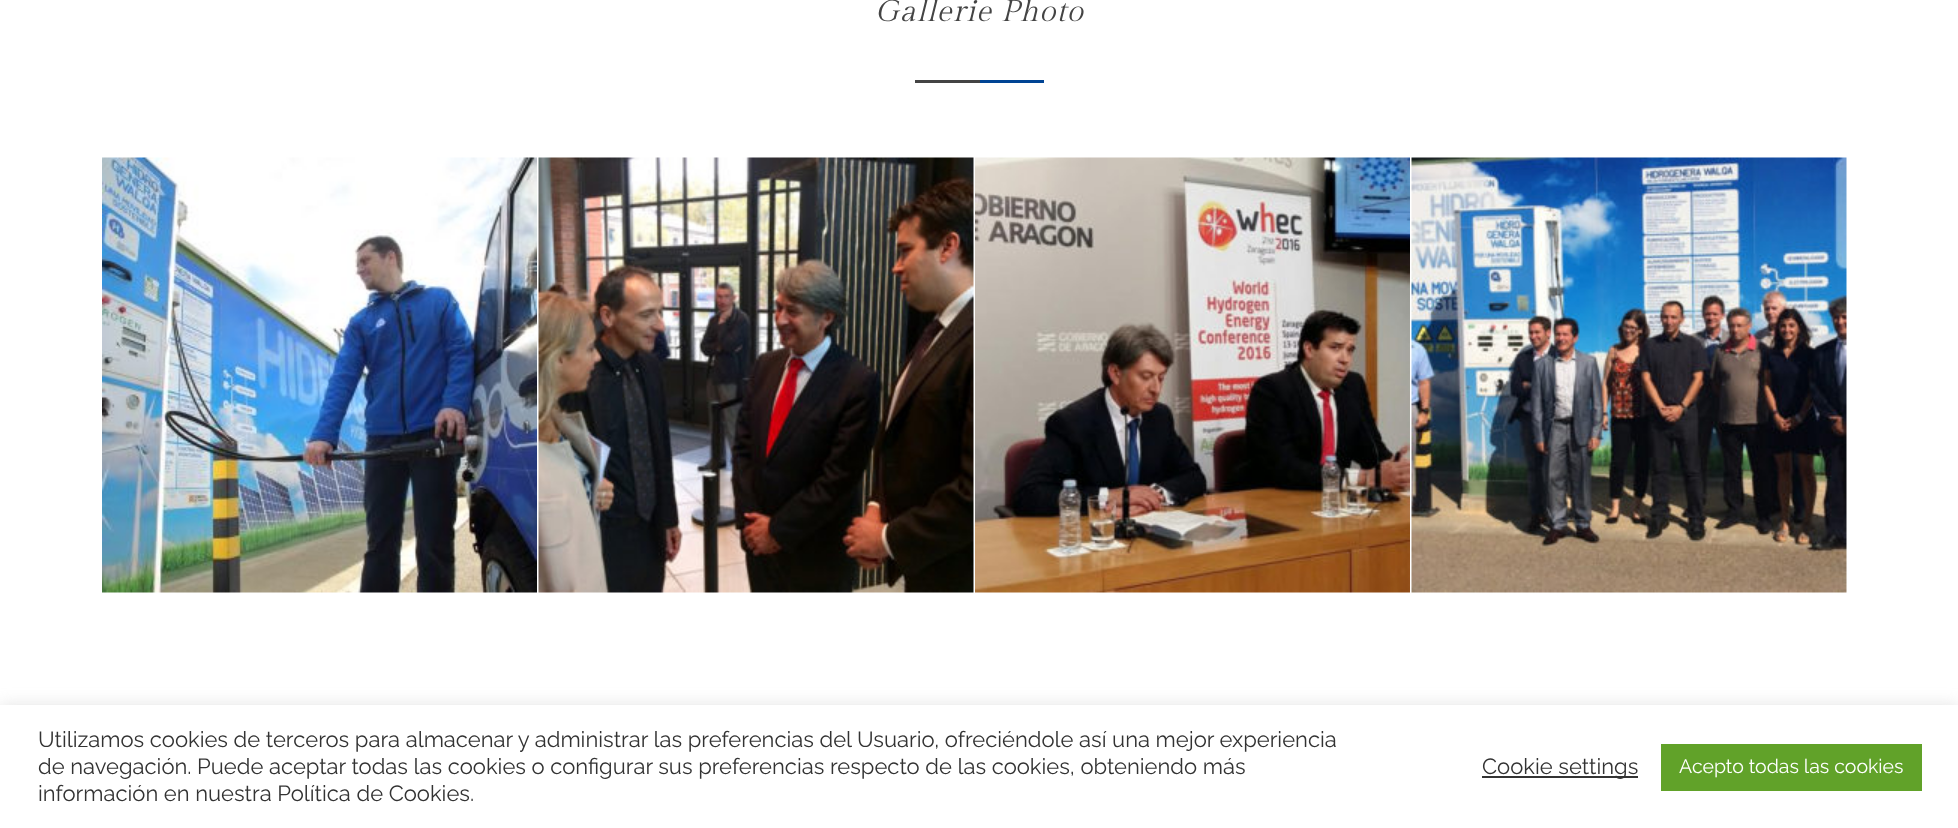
async function draw(canvas) {
	canvas.width = 1958;
	canvas.height = 828;
	const c = canvas.getContext('2d');
	c.miterLimit = 4;
	c.fontKerning = 'normal';
	async function loadImage(src) {
		const img = new Image();
		img.src = src;
		await img.decode();
		return img;
	}

	c.fillStyle = '#fff';
	c.fillRect(0, 0, 1958, 828);
	c.letterSpacing = '1px';
	c.font = 'italic 30px Gilda Display';
	c.fillStyle = '#444';
	c.fillText('Gallerie Photo', 875, 21);
	c.fillRect(915, 80, 65, 3);
	c.fillStyle = '#004494';
	c.fillRect(980, 80, 64, 3);
	c.drawImage(await loadImage('img1.png'), 102, 157, 435, 436);
	c.drawImage(await loadImage('img2.png'), 538, 157, 436, 436);
	c.drawImage(await loadImage('img3.png'), 975, 157, 435, 436);
	c.drawImage(await loadImage('img4.png'), 1411, 157, 436, 436);
	c.fillStyle = '#acabab4d';
	c.filter = 'blur(7.5px)';
	c.beginPath();
	c.rect(0, 704, 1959, 123);
	c.fill();
	c.filter = 'none';
	c.fillStyle = '#fff';
	c.fillRect(0, 705, 1958, 123);
	c.letterSpacing = '0px';
	c.font = '22px Raleway';
	c.fillStyle = '#333';
	for (const [text, x, y] of [
		['Utilizamos cookies de terceros para almacenar y administrar las preferencias del Usuario, ofreciéndole así una mejor experiencia', 38, 747],
		['de navegación. Puede aceptar todas las cookies o configurar sus preferencias respecto de las cookies, obteniendo más', 38, 774],
		['información en nuestra Política de Cookies.', 38, 801],
	]) {
		c.fillText(text, x, y);
	}
	c.fillRect(1482, 776, 156, 2);
	c.fillText('Cookie settings', 1482, 774);
	c.fillStyle = '#61a229';
	c.fillRect(1661, 744, 261, 47);
	c.font = '19.5px Raleway';
	c.fillStyle = '#fff';
	c.fillText('Acepto todas las cookies', 1679, 773);
}

draw(document.querySelector('canvas'));
